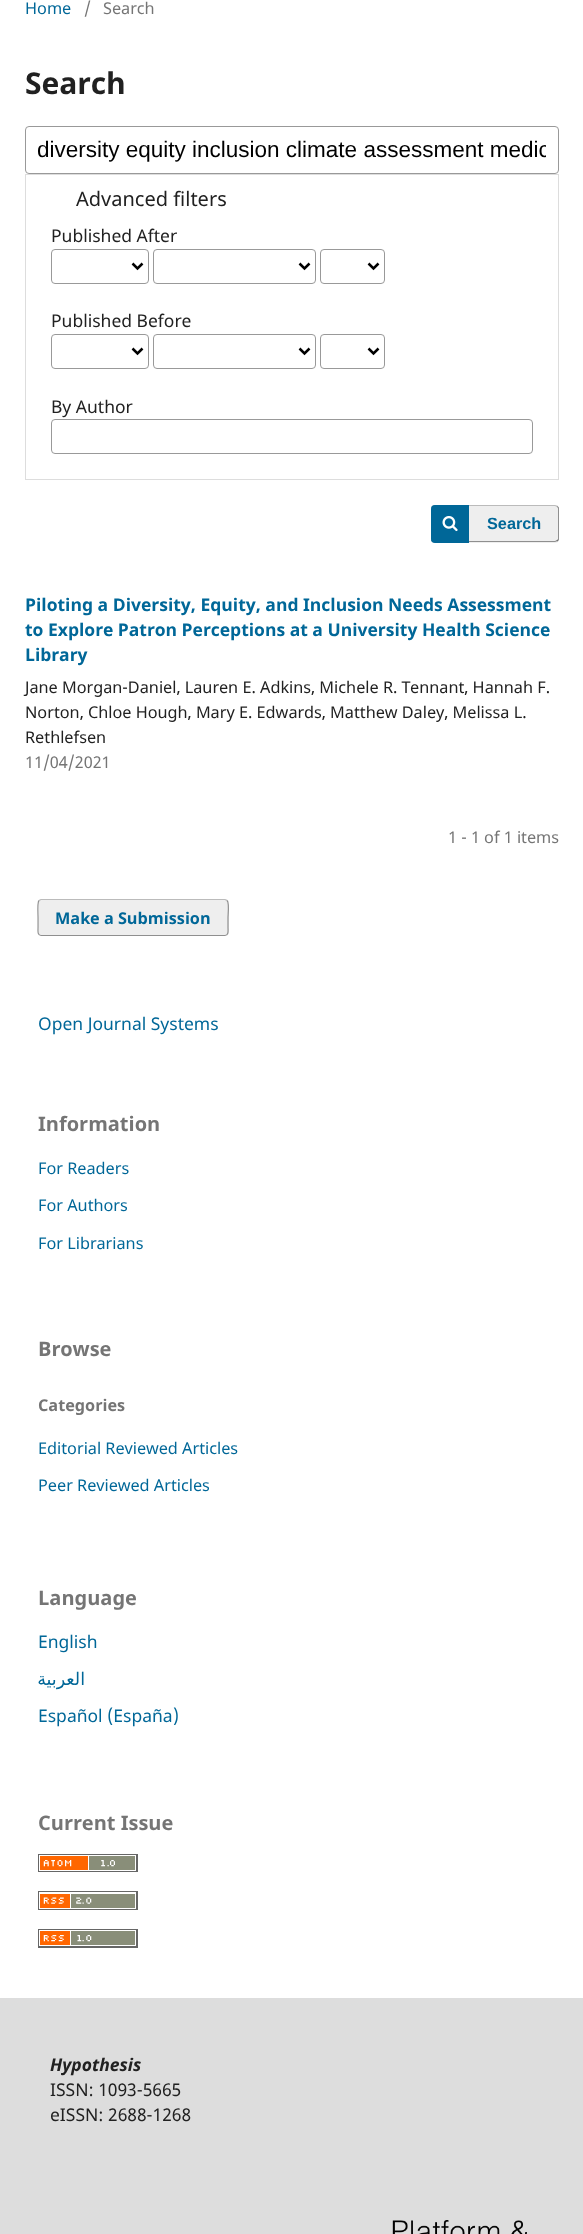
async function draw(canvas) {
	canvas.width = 583;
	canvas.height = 2234;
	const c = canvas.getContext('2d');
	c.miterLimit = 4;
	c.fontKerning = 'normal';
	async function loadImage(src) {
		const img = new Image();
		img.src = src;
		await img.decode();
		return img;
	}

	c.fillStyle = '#fff';
	c.fillRect(0, 0, 583, 2234);
	c.font = '16.25px Noto Sans';
	c.fillStyle = '#006798';
	c.fillText('Home', 25, 14);
	c.fillStyle = '#757575';
	c.fillText('/', 84, 14);
	c.fillText('Search', 103, 14);
	c.font = 'bold 30px Noto Sans';
	c.fillStyle = '#212121';
	c.fillText('Search', 25, 94);
	c.beginPath();
	c.roundRect(25.5, 126.5, 533, 47, 3.5);
	c.strokeStyle = '#999';
	c.stroke();
	c.save();
	c.beginPath();
	c.rect(38, 136, 508, 27);
	c.clip();
	c.font = '22.5px Liberation Sans';
	c.fillStyle = '#000';
	c.fillText('diversity equity inclusion climate assessment medic', 37, 157);
	c.restore();
	c.strokeStyle = '#ddd';
	c.strokeRect(25.5, 174.5, 533, 305);
	c.font = '20px Noto Sans';
	c.fillText('Advanced filters', 76, 206);
	c.font = '17.5px Noto Sans';
	c.fillText('Published After', 51, 242);
	c.beginPath();
	c.roundRect(51.5, 249.5, 97, 34, 3.5);
	c.strokeStyle = '#999';
	c.stroke();
	c.beginPath();
	c.moveTo(132.5, 263.5);
	c.lineTo(137.5, 268.5);
	c.lineTo(142.5, 263.5);
	c.strokeStyle = '#000';
	c.lineWidth = 2.5;
	c.stroke();
	c.beginPath();
	c.roundRect(153.5, 249.5, 162, 34, 3.5);
	c.strokeStyle = '#999';
	c.lineWidth = 1;
	c.stroke();
	c.beginPath();
	c.moveTo(299.5, 263.5);
	c.lineTo(304.5, 268.5);
	c.lineTo(309.5, 263.5);
	c.strokeStyle = '#000';
	c.lineWidth = 2.5;
	c.stroke();
	c.beginPath();
	c.roundRect(320.5, 249.5, 64, 34, 3.5);
	c.strokeStyle = '#999';
	c.lineWidth = 1;
	c.stroke();
	c.beginPath();
	c.moveTo(368.5, 263.5);
	c.lineTo(373.5, 268.5);
	c.lineTo(378.5, 263.5);
	c.strokeStyle = '#000';
	c.lineWidth = 2.5;
	c.stroke();
	c.fillText('Published Before', 51, 327);
	c.beginPath();
	c.roundRect(51.5, 334.5, 97, 34, 3.5);
	c.strokeStyle = '#999';
	c.lineWidth = 1;
	c.stroke();
	c.beginPath();
	c.moveTo(132.5, 348.5);
	c.lineTo(137.5, 353.5);
	c.lineTo(142.5, 348.5);
	c.strokeStyle = '#000';
	c.lineWidth = 2.5;
	c.stroke();
	c.beginPath();
	c.roundRect(153.5, 334.5, 162, 34, 3.5);
	c.strokeStyle = '#999';
	c.lineWidth = 1;
	c.stroke();
	c.beginPath();
	c.moveTo(299.5, 348.5);
	c.lineTo(304.5, 353.5);
	c.lineTo(309.5, 348.5);
	c.strokeStyle = '#000';
	c.lineWidth = 2.5;
	c.stroke();
	c.beginPath();
	c.roundRect(320.5, 334.5, 64, 34, 3.5);
	c.strokeStyle = '#999';
	c.lineWidth = 1;
	c.stroke();
	c.beginPath();
	c.moveTo(368.5, 348.5);
	c.lineTo(373.5, 353.5);
	c.lineTo(378.5, 348.5);
	c.strokeStyle = '#000';
	c.lineWidth = 2.5;
	c.stroke();
	c.fillText('By Author', 51, 413);
	c.beginPath();
	c.roundRect(51.5, 419.5, 481, 34, 3.5);
	c.strokeStyle = '#999';
	c.lineWidth = 1;
	c.stroke();
	c.fillStyle = '#eee';
	c.beginPath();
	c.roundRect(431, 505, 128, 38, 4);
	c.fill();
	c.fillStyle = '#bbb';
	c.beginPath();
	c.moveTo(435, 505);
	c.bezierCurveTo(434, 505, 431, 506, 431, 508);
	c.bezierCurveTo(432, 507, 433, 506, 435, 506);
	c.lineTo(555, 506);
	c.lineTo(557, 507);
	c.lineTo(558, 506);
	c.lineTo(555, 505);
	c.closePath();
	c.fill();
	c.fillStyle = '#00000066';
	c.beginPath();
	c.moveTo(556.5, 540.5);
	c.lineTo(558, 539);
	c.lineTo(558, 508.5);
	c.bezierCurveTo(558, 508, 557.5, 507.5, 557, 507);
	c.lineTo(557.5, 506);
	c.lineTo(559, 507.5);
	c.lineTo(559, 540);
	c.lineTo(557.5, 541.5);
	c.closePath();
	c.fill();
	c.beginPath();
	c.moveTo(431, 540);
	c.bezierCurveTo(432, 540, 433, 541, 435, 541);
	c.lineTo(555, 541);
	c.lineTo(557, 540);
	c.lineTo(558, 541);
	c.lineTo(555, 542);
	c.lineTo(455, 542);
	c.bezierCurveTo(446, 542, 431, 544, 431, 540);
	c.closePath();
	c.fill();
	c.fillStyle = '#006798';
	c.beginPath();
	c.roundRect(431, 505, 38, 38, [4, 0, 0, 4]);
	c.fill();
	c.drawImage(await loadImage('img1.png'), 442, 516, 16, 16);
	c.font = 'bold 16.25px Liberation Sans';
	c.fillText('Search', 487, 529);
	c.font = 'bold 17.5px Noto Sans';
	for (const [text, x, y] of [
		['Piloting a Diversity, Equity, and Inclusion Needs Assessment', 25, 611],
		['to Explore Patron Perceptions at a University Health Science', 25, 636],
		['Library', 25, 661],
	]) {
		c.fillText(text, x, y);
	}
	c.font = '16.25px Noto Sans';
	c.fillStyle = '#212121';
	for (const [text, x, y] of [
		['Jane Morgan-Daniel, Lauren E. Adkins, Michele R. Tennant, Hannah F.', 25, 693],
		['Norton, Chloe Hough, Mary E. Edwards, Matthew Daley, Melissa L.', 25, 718],
		['Rethlefsen', 25, 743],
	]) {
		c.fillText(text, x, y);
	}
	c.fillStyle = '#757575';
	c.fillText('11/04/2021', 25, 768);
	c.fillText('1 - 1 of 1 items', 448, 843);
	c.fillStyle = '#eee';
	c.beginPath();
	c.roundRect(38, 899, 191, 37, 4);
	c.fill();
	c.beginPath();
	c.moveTo(39, 900.5);
	c.lineTo(41, 899.5);
	c.lineTo(225, 899.5);
	c.lineTo(227, 900.5);
	c.strokeStyle = '#bbb';
	c.lineWidth = 1.2;
	c.stroke();
	c.beginPath();
	c.moveTo(227, 900.5);
	c.bezierCurveTo(229.5, 902.5, 228, 914.5, 228, 917.5);
	c.lineTo(228, 927.5);
	c.bezierCurveTo(228, 930, 229, 935.5, 225, 935.5);
	c.lineTo(41, 935.5);
	c.bezierCurveTo(37, 935.5, 38, 930, 38, 927.5);
	c.lineTo(38, 917.5);
	c.bezierCurveTo(38, 914.5, 37, 902.5, 39, 900.5);
	c.strokeStyle = '#00000066';
	c.stroke();
	c.font = 'bold 16.25px Noto Sans';
	c.fillStyle = '#006798';
	c.fillText('Make a Submission', 55, 924);
	c.font = '17.5px Noto Sans';
	c.fillText('Open Journal Systems', 38, 1030);
	c.font = 'bold 20px Noto Sans';
	c.fillStyle = '#757575';
	c.fillText('Information', 38, 1131);
	c.font = '16.25px Noto Sans';
	c.fillStyle = '#006798';
	for (const [text, x, y] of [
		['For Readers', 38, 1174],
		['For Authors', 38, 1211],
		['For Librarians', 38, 1249],
	]) {
		c.fillText(text, x, y);
	}
	c.font = 'bold 20px Noto Sans';
	c.fillStyle = '#757575';
	c.fillText('Browse', 38, 1356);
	c.font = 'bold 16.25px Noto Sans';
	c.fillText('Categories', 38, 1411);
	c.font = '16.25px Noto Sans';
	c.fillStyle = '#006798';
	c.fillText('Editorial Reviewed Articles', 38, 1454);
	c.fillText('Peer Reviewed Articles', 38, 1491);
	c.font = 'bold 20px Noto Sans';
	c.fillStyle = '#757575';
	c.fillText('Language', 38, 1605);
	c.font = '17.5px Noto Sans';
	c.fillStyle = '#006798';
	c.fillText('English', 38, 1648);
	c.direction = 'rtl';
	c.font = '17.5px DejaVu Sans';
	c.fillText('العربية', 85, 1685);
	c.direction = 'ltr';
	c.font = '17.5px Noto Sans';
	c.fillText('Español (España)', 38, 1722);
	c.font = 'bold 20px Noto Sans';
	c.fillStyle = '#757575';
	c.fillText('Current Issue', 38, 1830);
	c.drawImage(await loadImage('img2.png'), 38, 1854, 100, 18);
	c.drawImage(await loadImage('img3.png'), 38, 1891, 100, 19);
	c.drawImage(await loadImage('img4.png'), 38, 1929, 100, 19);
	c.fillStyle = '#ddd';
	c.fillRect(0, 1998, 583, 236);
	c.font = 'italic bold 17.5px Noto Sans';
	c.fillStyle = '#212121';
	c.fillText('Hypothesis', 50, 2071);
	c.font = '17.5px Noto Sans';
	c.fillText('ISSN: 1093-5665', 50, 2096);
	c.fillText('eISSN: 2688-1268', 50, 2121);
	c.drawImage(await loadImage('img5.png'), 392, 2220, 135, 14);
}

draw(document.querySelector('canvas'));
